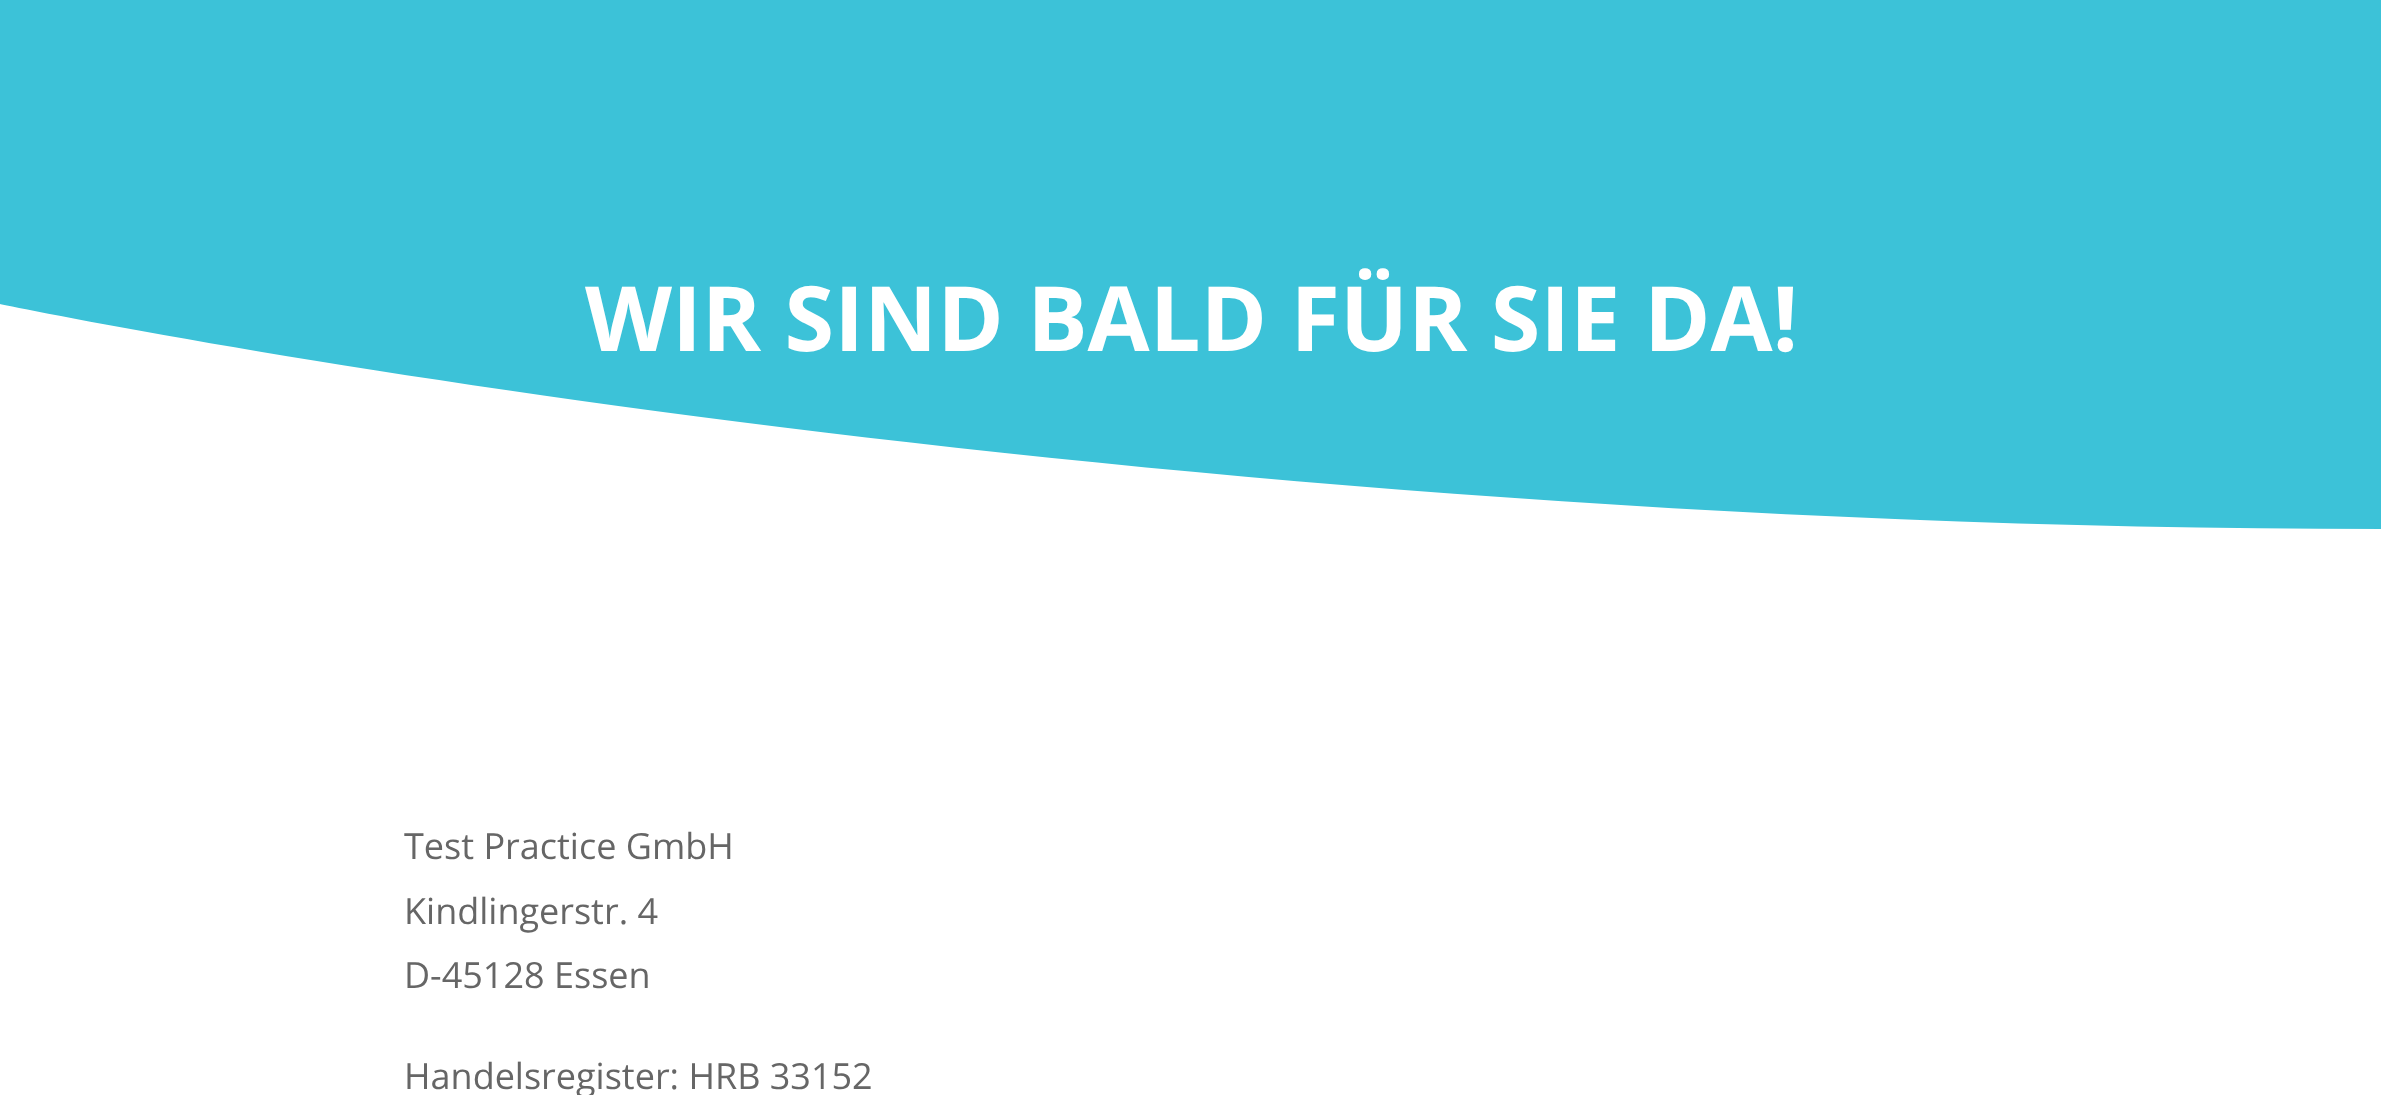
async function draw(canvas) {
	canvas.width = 2381;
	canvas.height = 1095;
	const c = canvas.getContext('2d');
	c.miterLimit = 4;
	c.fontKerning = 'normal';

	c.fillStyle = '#fff';
	c.fillRect(0, 0, 2381, 1095);
	c.fillStyle = '#3cc2d8';
	c.fillRect(0, 0, 2381, 529);
	c.fillStyle = '#fff';
	c.beginPath();
	c.moveTo(0, 529);
	c.lineTo(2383, 529);
	c.bezierCurveTo(1067, 529, 0, 304, 0, 304);
	c.closePath();
	c.fill();
	c.font = 'bold 90px Open Sans';
	c.fillText('WIR SIND BALD FÜR SIE DA!', 585, 351);
	c.font = '36px Open Sans';
	c.fillStyle = '#666';
	for (const [text, x, y] of [
		['Test Practice GmbH', 404, 859],
		['Kindlingerstr. 4', 404, 924],
		['D-45128 Essen', 404, 988],
		['Handelsregister: HRB 33152', 404, 1089],
	]) {
		c.fillText(text, x, y);
	}
}

draw(document.querySelector('canvas'));
